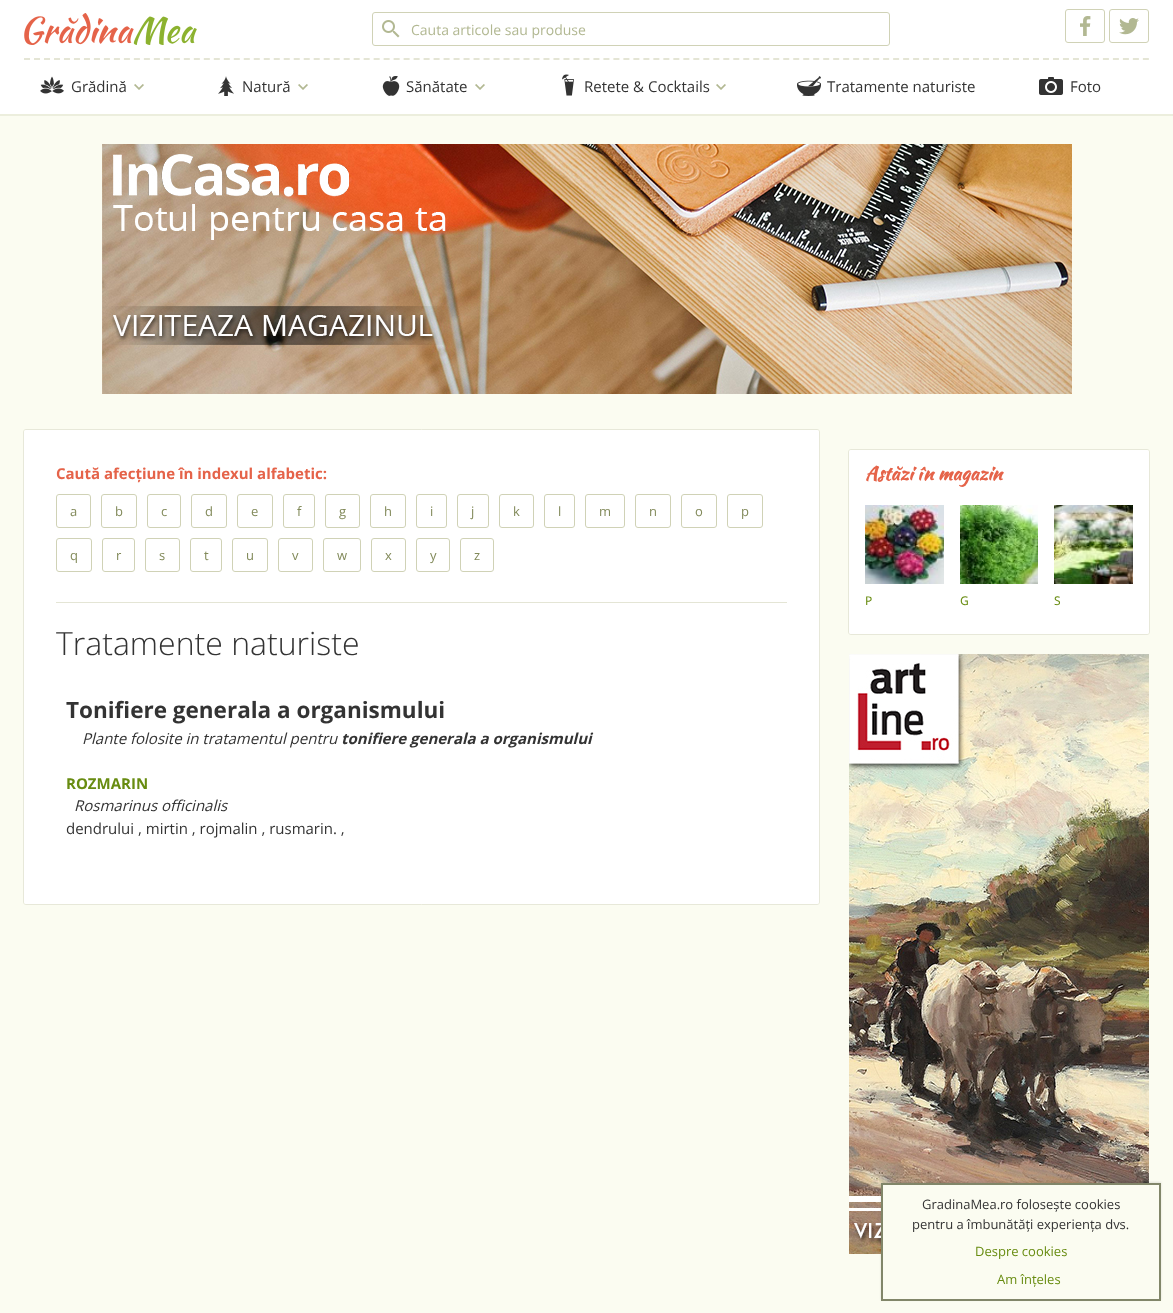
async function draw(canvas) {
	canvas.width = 1173;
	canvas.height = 1313;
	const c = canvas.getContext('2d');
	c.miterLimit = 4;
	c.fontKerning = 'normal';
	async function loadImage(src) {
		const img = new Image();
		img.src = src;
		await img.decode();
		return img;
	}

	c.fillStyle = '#fbfcf1';
	c.fillRect(0, 0, 1173, 1313);
	c.fillStyle = '#b2b89233';
	c.filter = 'blur(0.5px)';
	c.beginPath();
	c.rect(-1, 0, 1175, 116);
	c.fill();
	c.filter = 'none';
	c.fillStyle = '#fff';
	c.fillRect(0, 0, 1173, 114);
	c.drawImage(await loadImage('img1.png'), 24, 13, 173, 32);
	c.beginPath();
	c.roundRect(372.5, 12.5, 517, 33, 2.5);
	c.strokeStyle = '#d0d2b6';
	c.stroke();
	c.drawImage(await loadImage('img2.png'), 382, 20, 18, 18);
	c.font = '14px Open Sans';
	c.fillStyle = '#b2b892';
	c.fillText('Cauta articole sau produse', 411, 35);
	c.beginPath();
	c.roundRect(1065.5, 9.5, 39, 33, 2.5);
	c.stroke();
	c.drawImage(await loadImage('img3.png'), 1080, 16, 11, 20);
	c.beginPath();
	c.roundRect(1109.5, 9.5, 39, 33, 2.5);
	c.stroke();
	c.drawImage(await loadImage('img4.png'), 1119, 18, 20, 17);
	c.beginPath();
	c.moveTo(24, 59);
	c.lineTo(1149, 59);
	c.strokeStyle = '#e4e5d5';
	c.lineWidth = 2;
	c.setLineDash([6, 3.99]);
	c.stroke();
	c.drawImage(await loadImage('img5.png'), 40, 76, 24, 18);
	c.font = '15px Open Sans';
	c.fillStyle = '#333';
	c.fillText('Grădină', 71, 92);
	c.drawImage(await loadImage('img6.png'), 134, 84, 10, 6);
	c.drawImage(await loadImage('img7.png'), 218, 76, 16, 20);
	c.fillText('Natură', 242, 92);
	c.drawImage(await loadImage('img6.png'), 298, 84, 10, 6);
	c.drawImage(await loadImage('img8.png'), 382, 76, 18, 20);
	c.fillText('Sănătate', 406, 92);
	c.drawImage(await loadImage('img6.png'), 475, 84, 10, 6);
	c.drawImage(await loadImage('img9.png'), 562, 74, 12, 22);
	c.fillText('Retete & Cocktails', 584, 92);
	c.drawImage(await loadImage('img6.png'), 716, 84, 10, 6);
	c.drawImage(await loadImage('img10.png'), 797, 76, 24, 20);
	c.fillText('Tratamente naturiste', 827, 92);
	c.drawImage(await loadImage('img11.png'), 1039, 77, 24, 18);
	c.fillText('Foto', 1070, 92);
	c.drawImage(await loadImage('img12.png'), 102, 144, 970, 250);
	c.beginPath();
	c.roundRect(23.5, 429.5, 796, 475, 2.5);
	c.strokeStyle = '#e7e8d9';
	c.lineWidth = 1;
	c.setLineDash([]);
	c.stroke();
	c.fillStyle = '#fff';
	c.beginPath();
	c.roundRect(24, 430, 795, 474, 2);
	c.fill();
	c.font = 'bold 15px Open Sans';
	c.fillStyle = '#e56349';
	c.fillText('Caută afecțiune în indexul alfabetic:', 56, 479);
	c.beginPath();
	c.roundRect(56.5, 494.5, 34, 33, 2.5);
	c.strokeStyle = '#d0d2b6';
	c.stroke();
	c.font = '13px Open Sans';
	c.fillStyle = '#828a5a';
	c.fillText('a', 70, 516);
	c.beginPath();
	c.roundRect(101.5, 494.5, 35, 33, 2.5);
	c.stroke();
	c.fillText('b', 115, 516);
	c.beginPath();
	c.roundRect(147.5, 494.5, 33, 33, 2.5);
	c.stroke();
	c.fillText('c', 161, 516);
	c.beginPath();
	c.roundRect(191.5, 494.5, 35, 33, 2.5);
	c.stroke();
	c.fillText('d', 205, 516);
	c.beginPath();
	c.roundRect(237.5, 494.5, 35, 33, 2.5);
	c.stroke();
	c.fillText('e', 251, 516);
	c.beginPath();
	c.roundRect(283.5, 494.5, 31, 33, 2.5);
	c.stroke();
	c.fillText('f', 297, 516);
	c.beginPath();
	c.roundRect(325.5, 494.5, 34, 33, 2.5);
	c.stroke();
	c.fillText('g', 339, 516);
	c.beginPath();
	c.roundRect(370.5, 494.5, 35, 33, 2.5);
	c.stroke();
	c.fillText('h', 384, 516);
	c.beginPath();
	c.roundRect(416.5, 494.5, 30, 33, 2.5);
	c.stroke();
	c.fillText('i', 430, 516);
	c.beginPath();
	c.roundRect(457.5, 494.5, 31, 33, 2.5);
	c.stroke();
	c.fillText('j', 471, 516);
	c.beginPath();
	c.roundRect(499.5, 494.5, 34, 33, 2.5);
	c.stroke();
	c.fillText('k', 513, 516);
	c.beginPath();
	c.roundRect(544.5, 494.5, 30, 33, 2.5);
	c.stroke();
	c.fillText('l', 558, 516);
	c.beginPath();
	c.roundRect(585.5, 494.5, 39, 33, 2.5);
	c.stroke();
	c.fillText('m', 599, 516);
	c.beginPath();
	c.roundRect(635.5, 494.5, 35, 33, 2.5);
	c.stroke();
	c.fillText('n', 649, 516);
	c.beginPath();
	c.roundRect(681.5, 494.5, 35, 33, 2.5);
	c.stroke();
	c.fillText('o', 695, 516);
	c.beginPath();
	c.roundRect(727.5, 494.5, 35, 33, 2.5);
	c.stroke();
	c.fillText('p', 741, 516);
	c.beginPath();
	c.roundRect(56.5, 538.5, 35, 33, 2.5);
	c.stroke();
	c.fillText('q', 70, 560);
	c.beginPath();
	c.roundRect(102.5, 538.5, 32, 33, 2.5);
	c.stroke();
	c.fillText('r', 116, 560);
	c.beginPath();
	c.roundRect(145.5, 538.5, 34, 33, 2.5);
	c.stroke();
	c.fillText('s', 159, 560);
	c.beginPath();
	c.roundRect(190.5, 538.5, 31, 33, 2.5);
	c.stroke();
	c.fillText('t', 204, 560);
	c.beginPath();
	c.roundRect(232.5, 538.5, 35, 33, 2.5);
	c.stroke();
	c.fillText('u', 246, 560);
	c.beginPath();
	c.roundRect(278.5, 538.5, 34, 33, 2.5);
	c.stroke();
	c.fillText('v', 292, 560);
	c.beginPath();
	c.roundRect(323.5, 538.5, 37, 33, 2.5);
	c.stroke();
	c.fillText('w', 337, 560);
	c.beginPath();
	c.roundRect(371.5, 538.5, 34, 33, 2.5);
	c.stroke();
	c.fillText('x', 385, 560);
	c.beginPath();
	c.roundRect(416.5, 538.5, 33, 33, 2.5);
	c.stroke();
	c.fillText('y', 430, 560);
	c.beginPath();
	c.roundRect(460.5, 538.5, 33, 33, 2.5);
	c.stroke();
	c.fillText('z', 474, 560);
	c.fillStyle = '#e4e5d5';
	c.fillRect(56, 602, 731, 1);
	c.font = '300 32px Open Sans';
	c.fillStyle = '#333';
	c.fillText('Tratamente naturiste', 56, 655);
	c.font = 'bold 22.5px Open Sans';
	c.fillText('Tonifiere generala a organismului', 66, 718);
	c.font = 'italic 15px Open Sans';
	c.fillText('Plante folosite in tratamentul pentru', 82, 744);
	c.font = 'italic bold 15px Open Sans';
	c.fillText('tonifiere generala a organismului', 341, 744);
	c.font = 'bold 15px Open Sans';
	c.fillStyle = '#688c11';
	c.fillText('ROZMARIN', 66, 789);
	c.font = 'italic 15px Open Sans';
	c.fillStyle = '#333';
	c.fillText('Rosmarinus officinalis', 74, 811);
	c.font = '15px Open Sans';
	c.fillText('dendrului , mirtin , rojmalin , rusmarin. ,', 66, 834);
	c.beginPath();
	c.roundRect(848.5, 449.5, 301, 185, 2.5);
	c.strokeStyle = '#e7e8d9';
	c.stroke();
	c.fillStyle = '#fff';
	c.beginPath();
	c.roundRect(849, 450, 300, 184, 2);
	c.fill();
	c.font = 'bold 19px Kaushan Script';
	c.fillStyle = '#e56349';
	c.fillText('Astăzi în magazin', 865, 480);
	c.drawImage(await loadImage('img13.png'), 865, 505, 79, 79);
	c.font = '12px Noto Sans';
	c.fillStyle = '#688c11';
	c.fillText('P', 865, 605);
	c.drawImage(await loadImage('img14.png'), 960, 505, 78, 79);
	c.fillText('G', 960, 605);
	c.drawImage(await loadImage('img15.png'), 1054, 505, 79, 79);
	c.fillText('S', 1054, 605);
	c.drawImage(await loadImage('img16.png'), 849, 654, 300, 600);
	c.fillStyle = '#0000001a';
	c.filter = 'blur(1px)';
	c.beginPath();
	c.rect(881, 1182, 280, 118);
	c.fill();
	c.filter = 'none';
	c.fillStyle = '#fbfcf1';
	c.beginPath();
	c.rect(882, 1184, 278, 116);
	c.fill();
	c.strokeStyle = '#818669';
	c.lineWidth = 2;
	c.stroke();
	c.font = '13px Open Sans';
	c.fillStyle = '#333';
	c.fillText('GradinaMea.ro folosește cookies', 922, 1209);
	c.fillText('pentru a îmbunătăți experiența dvs.', 912, 1229);
	c.fillStyle = '#688c11';
	c.fillText('Despre cookies', 975, 1256);
	c.fillText('Am înțeles', 997, 1284);
}

draw(document.querySelector('canvas'));
